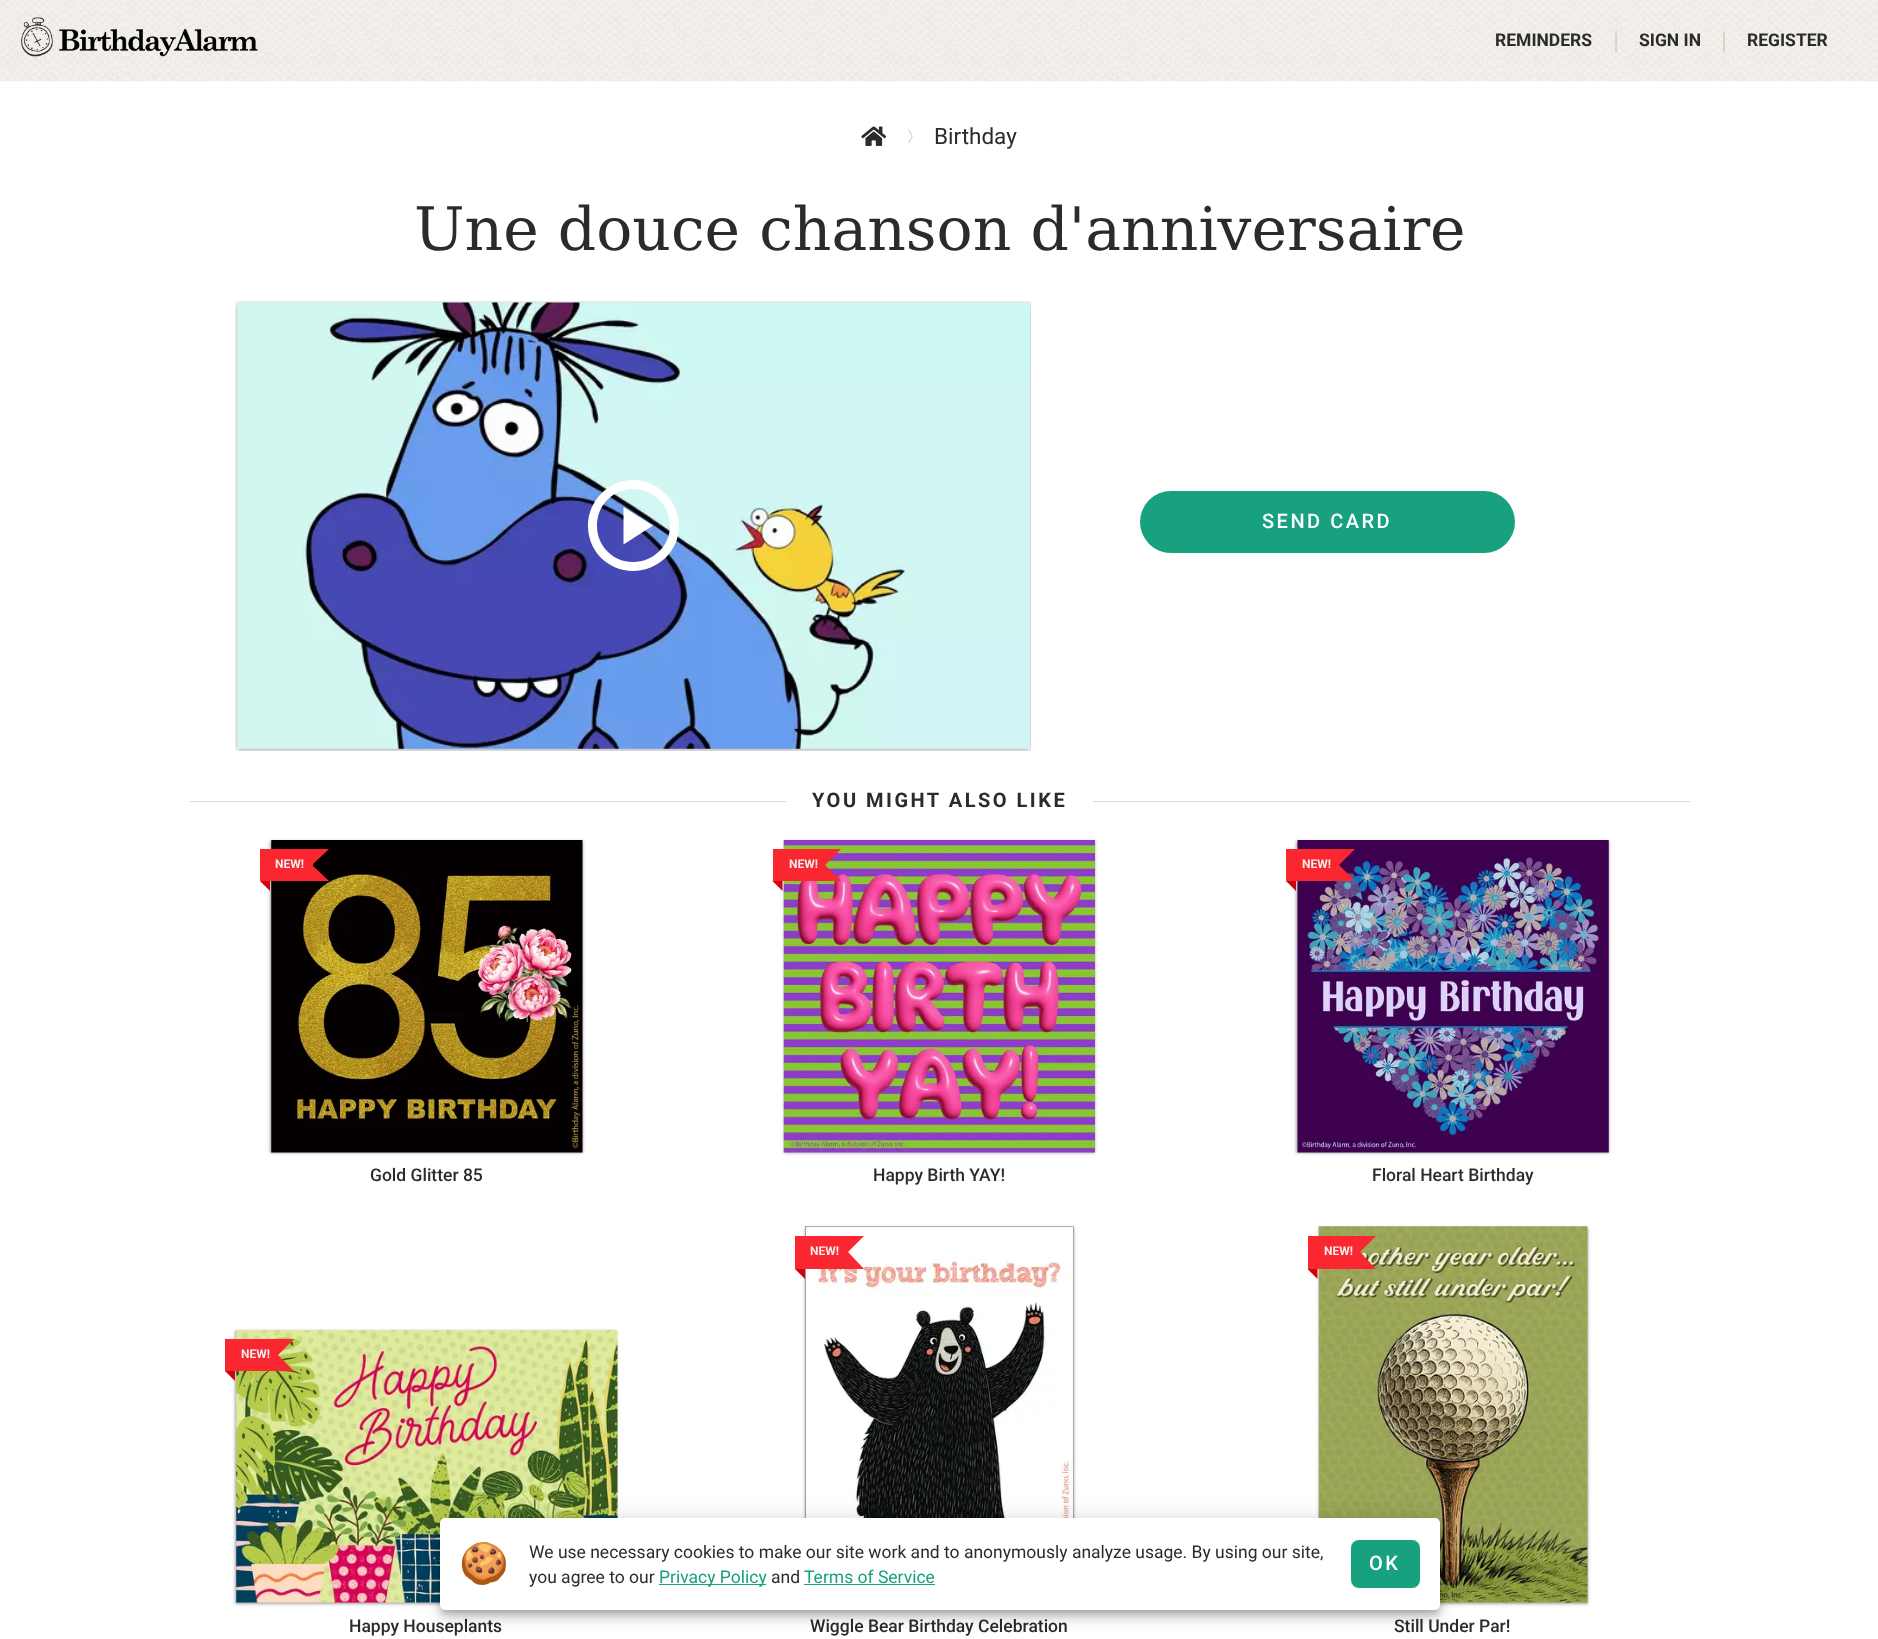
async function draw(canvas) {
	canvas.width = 1878;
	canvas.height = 1639;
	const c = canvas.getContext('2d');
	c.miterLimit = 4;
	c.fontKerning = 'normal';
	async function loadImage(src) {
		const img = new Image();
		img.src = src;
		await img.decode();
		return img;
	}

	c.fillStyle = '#fff';
	c.fillRect(0, 0, 1878, 1639);
	c.drawImage(await loadImage('img1.png'), 0, 0, 1878, 82);
	c.drawImage(await loadImage('img2.png'), 21, 17, 237, 40);
	c.font = 'bold 17.5px Roboto';
	c.fillStyle = '#2b2b2b';
	c.fillText('REMINDERS', 1495, 46);
	c.font = '25px Roboto';
	c.fillStyle = '#d8d0c5';
	c.fillText('|', 1613, 49);
	c.font = 'bold 17.5px Roboto';
	c.fillStyle = '#2b2b2b';
	c.fillText('SIGN IN', 1639, 46);
	c.font = '25px Roboto';
	c.fillStyle = '#d8d0c5';
	c.fillText('|', 1721, 49);
	c.font = 'bold 17.5px Roboto';
	c.fillStyle = '#2b2b2b';
	c.fillText('REGISTER', 1747, 46);
	c.drawImage(await loadImage('img3.png'), 861, 126, 25, 20);
	c.drawImage(await loadImage('img4.png'), 908, 129, 5, 15);
	c.font = '22.5px Roboto';
	c.fillText('Birthday', 934, 144);
	c.font = '60px DejaVu Serif';
	c.fillText('Une douce chanson d\'anniversaire', 414, 250);
	c.drawImage(await loadImage('img5.png'), 235, 301, 796, 450);
	c.fillStyle = '#fff';
	c.beginPath();
	c.moveTo(633, 480);
	c.bezierCurveTo(608, 480, 588, 501, 588, 526);
	c.bezierCurveTo(588, 551, 608, 571, 633, 571);
	c.bezierCurveTo(658, 571, 679, 551, 679, 526);
	c.bezierCurveTo(679, 501, 658, 480, 633, 480);
	c.closePath();
	c.moveTo(633, 562);
	c.bezierCurveTo(613, 562, 597, 546, 597, 526);
	c.bezierCurveTo(597, 505, 613, 489, 633, 489);
	c.bezierCurveTo(653, 489, 670, 505, 670, 526);
	c.bezierCurveTo(670, 546, 653, 562, 633, 562);
	c.closePath();
	c.fill();
	c.beginPath();
	c.moveTo(623.5, 507);
	c.lineTo(623.5, 544.5);
	c.lineTo(653, 525.5);
	c.closePath();
	c.fill();
	c.fillStyle = '#17a17e';
	c.beginPath();
	c.roundRect(1140, 491, 375, 62, 31);
	c.fill();
	c.letterSpacing = '2.5px';
	c.font = '500 20px Roboto';
	c.fillStyle = '#fff';
	c.fillText('SEND CARD', 1262, 528);
	c.fillStyle = '#d9d9d9';
	c.fillRect(190, 801, 596, 1);
	c.font = 'bold 20px Roboto';
	c.fillStyle = '#2b2b2b';
	c.fillText('YOU MIGHT ALSO LIKE', 812, 807);
	c.fillStyle = '#d9d9d9';
	c.fillRect(1093, 801, 597, 1);
	c.fillStyle = '#0000003d';
	c.filter = 'blur(1px)';
	c.beginPath();
	c.rect(270, 841, 313, 312);
	c.fill();
	c.filter = 'none';
	c.fillStyle = '#0000001f';
	c.filter = 'blur(2px)';
	c.beginPath();
	c.rect(270, 841, 313, 312);
	c.fill();
	c.filter = 'none';
	c.drawImage(await loadImage('img6.png'), 271, 840, 312, 313);
	c.fillStyle = '#fa2630';
	c.beginPath();
	c.moveTo(260, 849);
	c.lineTo(329, 849);
	c.lineTo(312, 865);
	c.closePath();
	c.fill();
	c.beginPath();
	c.moveTo(329, 881);
	c.lineTo(260, 881);
	c.lineTo(312, 865);
	c.closePath();
	c.fill();
	c.fillRect(260, 849, 53, 32);
	c.letterSpacing = '0px';
	c.font = 'bold 12px Roboto';
	c.fillStyle = '#eee';
	c.fillText('NEW!', 275, 868);
	c.fillStyle = '#cc050f';
	c.beginPath();
	c.moveTo(260, 881);
	c.lineTo(270, 881);
	c.lineTo(270, 891);
	c.closePath();
	c.fill();
	c.font = '500 17.5px Roboto';
	c.fillStyle = '#2b2b2b';
	c.fillText('Gold Glitter 85', 370, 1181);
	c.fillStyle = '#0000003d';
	c.filter = 'blur(1px)';
	c.beginPath();
	c.rect(784, 841, 311, 312);
	c.fill();
	c.filter = 'none';
	c.fillStyle = '#0000001f';
	c.filter = 'blur(2px)';
	c.beginPath();
	c.rect(784, 841, 311, 312);
	c.fill();
	c.filter = 'none';
	c.drawImage(await loadImage('img7.png'), 783, 840, 312, 313);
	c.fillStyle = '#fa2630';
	c.beginPath();
	c.moveTo(772, 849);
	c.lineTo(841, 849);
	c.lineTo(825, 865);
	c.closePath();
	c.fill();
	c.beginPath();
	c.moveTo(841, 881);
	c.lineTo(772, 881);
	c.lineTo(825, 865);
	c.closePath();
	c.fill();
	c.fillRect(773, 849, 52, 32);
	c.font = 'bold 12px Roboto';
	c.fillStyle = '#eee';
	c.fillText('NEW!', 789, 868);
	c.fillStyle = '#cc050f';
	c.beginPath();
	c.moveTo(772.5, 881);
	c.lineTo(782.5, 881);
	c.lineTo(782.5, 891);
	c.closePath();
	c.fill();
	c.font = '500 17.5px Roboto';
	c.fillStyle = '#2b2b2b';
	c.fillText('Happy Birth YAY!', 873, 1181);
	c.fillStyle = '#0000003d';
	c.filter = 'blur(1px)';
	c.beginPath();
	c.rect(1296, 841, 313, 312);
	c.fill();
	c.filter = 'none';
	c.fillStyle = '#0000001f';
	c.filter = 'blur(2px)';
	c.beginPath();
	c.rect(1296, 841, 313, 312);
	c.fill();
	c.filter = 'none';
	c.drawImage(await loadImage('img8.png'), 1297, 840, 312, 313);
	c.fillStyle = '#fa2630';
	c.beginPath();
	c.moveTo(1286, 849);
	c.lineTo(1355, 849);
	c.lineTo(1339, 865);
	c.closePath();
	c.fill();
	c.beginPath();
	c.moveTo(1355, 881);
	c.lineTo(1286, 881);
	c.lineTo(1339, 865);
	c.closePath();
	c.fill();
	c.fillRect(1286, 849, 53, 32);
	c.font = 'bold 12px Roboto';
	c.fillStyle = '#eee';
	c.fillText('NEW!', 1302, 868);
	c.fillStyle = '#cc050f';
	c.beginPath();
	c.moveTo(1286, 881);
	c.lineTo(1296, 881);
	c.lineTo(1296, 891);
	c.closePath();
	c.fill();
	c.font = '500 17.5px Roboto';
	c.fillStyle = '#2b2b2b';
	c.fillText('Floral Heart Birthday', 1372, 1181);
	c.fillStyle = '#0000003d';
	c.filter = 'blur(1px)';
	c.beginPath();
	c.rect(235, 1331, 381, 273);
	c.fill();
	c.filter = 'none';
	c.fillStyle = '#0000001f';
	c.filter = 'blur(2px)';
	c.beginPath();
	c.rect(235, 1331, 381, 273);
	c.fill();
	c.filter = 'none';
	c.drawImage(await loadImage('img9.png'), 236, 1330, 382, 273);
	c.fillStyle = '#fa2630';
	c.beginPath();
	c.moveTo(225, 1339);
	c.lineTo(294, 1339);
	c.lineTo(278, 1355);
	c.closePath();
	c.fill();
	c.beginPath();
	c.moveTo(294, 1371);
	c.lineTo(225, 1371);
	c.lineTo(278, 1355);
	c.closePath();
	c.fill();
	c.fillRect(225, 1339, 53, 32);
	c.font = 'bold 12px Roboto';
	c.fillStyle = '#eee';
	c.fillText('NEW!', 241, 1358);
	c.fillStyle = '#cc050f';
	c.beginPath();
	c.moveTo(225, 1371);
	c.lineTo(235, 1371);
	c.lineTo(235, 1381);
	c.closePath();
	c.fill();
	c.font = '500 17.5px Roboto';
	c.fillStyle = '#2b2b2b';
	c.fillText('Happy Houseplants', 349, 1632);
	c.fillStyle = '#0000003d';
	c.filter = 'blur(1px)';
	c.beginPath();
	c.rect(805, 1228, 269, 376);
	c.fill();
	c.filter = 'none';
	c.fillStyle = '#0000001f';
	c.filter = 'blur(2px)';
	c.beginPath();
	c.rect(805, 1228, 269, 376);
	c.fill();
	c.filter = 'none';
	c.drawImage(await loadImage('img10.png'), 805, 1226, 269, 292);
	c.fillStyle = '#fa2630';
	c.beginPath();
	c.moveTo(795, 1236);
	c.lineTo(864, 1236);
	c.lineTo(848, 1252);
	c.closePath();
	c.fill();
	c.beginPath();
	c.moveTo(864, 1269);
	c.lineTo(795, 1269);
	c.lineTo(848, 1252);
	c.closePath();
	c.fill();
	c.fillRect(795, 1236, 53, 33);
	c.font = 'bold 12px Roboto';
	c.fillStyle = '#eee';
	c.fillText('NEW!', 810, 1255);
	c.fillStyle = '#cc050f';
	c.beginPath();
	c.moveTo(795, 1269);
	c.lineTo(805, 1269);
	c.lineTo(805, 1279);
	c.closePath();
	c.fill();
	c.font = '500 17.5px Roboto';
	c.fillStyle = '#2b2b2b';
	c.fillText('Wiggle Bear Birthday Celebration', 810, 1632);
	c.fillStyle = '#0000003d';
	c.filter = 'blur(1px)';
	c.beginPath();
	c.rect(1319, 1228, 269, 376);
	c.fill();
	c.filter = 'none';
	c.fillStyle = '#0000001f';
	c.filter = 'blur(2px)';
	c.beginPath();
	c.rect(1319, 1228, 269, 376);
	c.fill();
	c.filter = 'none';
	c.drawImage(await loadImage('img11.png'), 1318, 1226, 270, 377);
	c.fillStyle = '#fa2630';
	c.beginPath();
	c.moveTo(1308, 1236);
	c.lineTo(1376, 1236);
	c.lineTo(1360, 1252);
	c.closePath();
	c.fill();
	c.beginPath();
	c.moveTo(1376, 1269);
	c.lineTo(1308, 1269);
	c.lineTo(1360, 1252);
	c.closePath();
	c.fill();
	c.fillRect(1308, 1236, 52, 33);
	c.font = 'bold 12px Roboto';
	c.fillStyle = '#eee';
	c.fillText('NEW!', 1324, 1255);
	c.fillStyle = '#cc050f';
	c.beginPath();
	c.moveTo(1307.5, 1269);
	c.lineTo(1317.5, 1269);
	c.lineTo(1317.5, 1279);
	c.closePath();
	c.fill();
	c.font = '500 17.5px Roboto';
	c.fillStyle = '#2b2b2b';
	c.fillText('Still Under Par!', 1394, 1632);
	c.fillStyle = '#0000001f';
	c.filter = 'blur(11px)';
	c.beginPath();
	c.roundRect(440, 1519, 1000, 92, 5);
	c.fill();
	c.filter = 'none';
	c.fillStyle = '#00000024';
	c.filter = 'blur(6px)';
	c.beginPath();
	c.roundRect(440, 1525, 1000, 93, 5);
	c.fill();
	c.filter = 'none';
	c.fillStyle = '#00000033';
	c.filter = 'blur(3px)';
	c.beginPath();
	c.roundRect(441, 1523, 998, 90, 4);
	c.fill();
	c.filter = 'none';
	c.fillStyle = '#fff';
	c.beginPath();
	c.roundRect(440, 1518, 1000, 92, 5);
	c.fill();
	c.font = '40px Noto Color Emoji';
	c.fillStyle = '#2b2b2b';
	c.fillText('🍪', 459, 1577);
	c.font = '17.5px Roboto';
	c.fillText('We use necessary cookies to make our site work and to anonymously analyze usage. By using our site,', 529, 1558);
	c.fillText('you agree to our', 529, 1583);
	c.fillStyle = '#17a17e';
	c.fillRect(659, 1584, 107, 1);
	c.fillText('Privacy Policy', 659, 1583);
	c.fillStyle = '#2b2b2b';
	c.fillText('and', 771, 1583);
	c.fillStyle = '#17a17e';
	c.fillText('Terms of Service', 804, 1583);
	c.fillRect(804, 1584, 131, 1);
	c.beginPath();
	c.roundRect(1351, 1540, 69, 48, 8);
	c.fill();
	c.letterSpacing = '2.5px';
	c.font = '500 20px Roboto';
	c.fillStyle = '#fff';
	c.fillText('OK', 1369, 1570);
}

draw(document.querySelector('canvas'));
